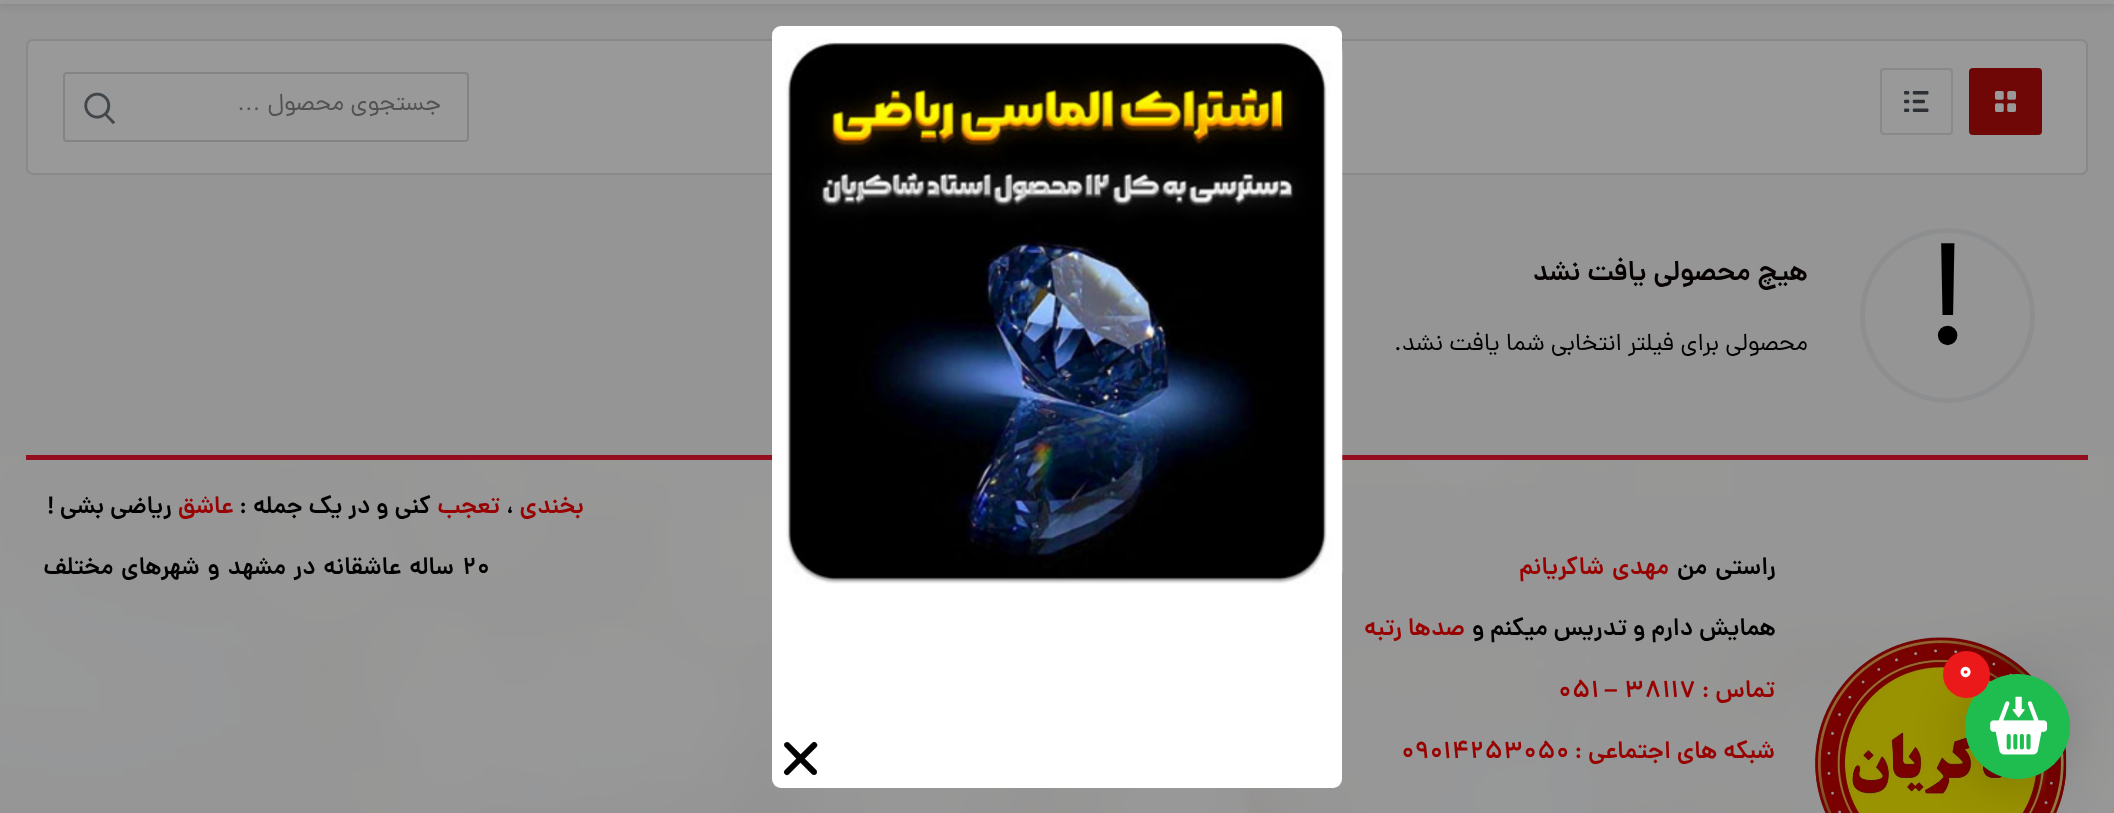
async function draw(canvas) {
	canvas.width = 2114;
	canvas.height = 813;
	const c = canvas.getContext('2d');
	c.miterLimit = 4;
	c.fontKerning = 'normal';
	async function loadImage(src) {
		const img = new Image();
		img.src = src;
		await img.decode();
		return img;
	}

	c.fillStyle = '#999';
	c.fillRect(0, 0, 2114, 813);
	c.fillStyle = '#959596';
	c.fillRect(0, 4, 2114, 451);
	c.fillStyle = '#999';
	c.beginPath();
	c.roundRect(27, 40, 2060, 134, 6);
	c.fill();
	c.strokeStyle = '#898989';
	c.lineWidth = 2;
	c.stroke();
	c.drawImage(await loadImage('img7.png'), 0, 455, 2114, 358);
	c.fillStyle = '#940e20';
	c.fillRect(26, 455, 2062, 5);
	c.fillStyle = '#fff';
	c.beginPath();
	c.roundRect(772, 26, 570, 762, 9);
	c.fill();
	c.drawImage(await loadImage('img1.png'), 785, 38, 558, 546);
	c.drawImage(await loadImage('img2.png'), 783, 741, 35, 35);
	c.drawImage(await loadImage('img8.png'), 1815, 637, 252, 176);
	c.fillStyle = '#0000002b';
	c.filter = 'blur(26px)';
	c.beginPath();
	c.roundRect(1965, 681, 105, 105, 52.5);
	c.fill();
	c.filter = 'none';
	c.fillStyle = '#1fbd50';
	c.beginPath();
	c.arc(2017.5, 726.5, 52.5, 0, 2 * Math.PI);
	c.fill();
	c.fillStyle = '#eb1919';
	c.beginPath();
	c.arc(1966.5, 674.5, 23.5, 0, 2 * Math.PI);
	c.fill();
	c.font = 'bold 26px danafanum';
	c.fillStyle = '#fff';
	c.fillText('0', 1958, 678);
	c.drawImage(await loadImage('img3.png'), 1990, 696, 58, 59);
	c.fillStyle = '#00000012';
	c.filter = 'blur(3.5px)';
	c.beginPath();
	c.rect(0, -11, 2114, 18);
	c.fill();
	c.filter = 'none';
	c.fillStyle = '#999';
	c.fillRect(0, 0, 2114, 4);
	c.fillStyle = '#6f0707';
	c.beginPath();
	c.roundRect(1970, 69, 71, 65, 3);
	c.fill();
	c.strokeStyle = '#6f0707';
	c.stroke();
	c.drawImage(await loadImage('img4.png'), 1995, 91, 21, 21);
	c.beginPath();
	c.roundRect(1881, 69, 71, 65, 3);
	c.strokeStyle = '#898989';
	c.stroke();
	c.drawImage(await loadImage('img5.png'), 1904, 91, 25, 21);
	c.beginPath();
	c.roundRect(64, 73, 404, 68, 3);
	c.strokeStyle = '#848484';
	c.stroke();
	c.direction = 'rtl';
	c.font = '24.5px danafanum';
	c.fillStyle = '#525252';
	c.fillText('جستجوی محصول', 441, 110);
	c.font = '24.5px Liberation Sans';
	c.fillText('…', 261, 110);
	c.drawImage(await loadImage('img6.png'), 84, 92, 32, 33);
	c.beginPath();
	c.arc(1947.5, 315.5, 85, 0, 2 * Math.PI);
	c.strokeStyle = '#8c8e8f';
	c.lineWidth = 5;
	c.stroke();
	c.direction = 'ltr';
	c.font = '149px danafanum';
	c.fillStyle = '#000';
	c.fillText('!', 1927, 341);
	c.direction = 'rtl';
	c.font = '600 28px danafanum';
	c.fillStyle = '#060000';
	c.fillText('هیچ محصولی یافت نشد', 1808, 280);
	c.font = '24.5px danafanum';
	c.fillStyle = '#000';
	c.fillText('محصولی برای فیلتر انتخابی شما یافت نشد.', 1808, 350);
	c.font = '600 24.5px danafanum';
	c.fillStyle = '#900';
	c.fillText('بخندی', 584, 513);
	c.direction = 'ltr';
	c.fillStyle = '#000';
	c.fillText('،', 506, 513);
	c.direction = 'rtl';
	c.fillStyle = '#900';
	c.fillText('تعجب', 500, 513);
	c.fillStyle = '#000';
	c.fillText('کنی و در یک جمله :', 431, 513);
	c.fillStyle = '#900';
	c.fillText('عاشق', 234, 513);
	c.fillStyle = '#000';
	c.fillText('ریاضی بشی !', 172, 513);
	c.wordSpacing = '2px';
	c.fillText('راستی من', 1776, 574);
	c.fillStyle = '#900';
	c.fillText('مهدی شاکریانم', 1669, 574);
	c.wordSpacing = '0px';
	c.direction = 'ltr';
	c.fillStyle = '#000';
	c.fillText('۲۰', 462, 574);
	c.wordSpacing = '1.75px';
	c.direction = 'rtl';
	c.fillText('ساله عاشقانه در مشهد و شهرهای مختلف', 454, 574);
	c.wordSpacing = '0px';
	c.fillText('همایش دارم و تدریس میکنم و', 1776, 635);
	c.fillStyle = '#900';
	c.fillText('صدها رتبه', 1465, 635);
	c.fillText('تماس :', 1775, 697);
	c.direction = 'ltr';
	c.fillText('38117', 1624, 697);
	c.font = 'bold 24.5px Liberation Sans';
	c.fillText('–', 1604, 697);
	c.font = '600 24.5px danafanum';
	c.fillText('051', 1558, 697);
	c.direction = 'rtl';
	c.fillText('شبکه های اجتماعی :', 1775, 758);
	c.direction = 'ltr';
	c.fillText('09014253050', 1401, 758);
}

draw(document.querySelector('canvas'));
